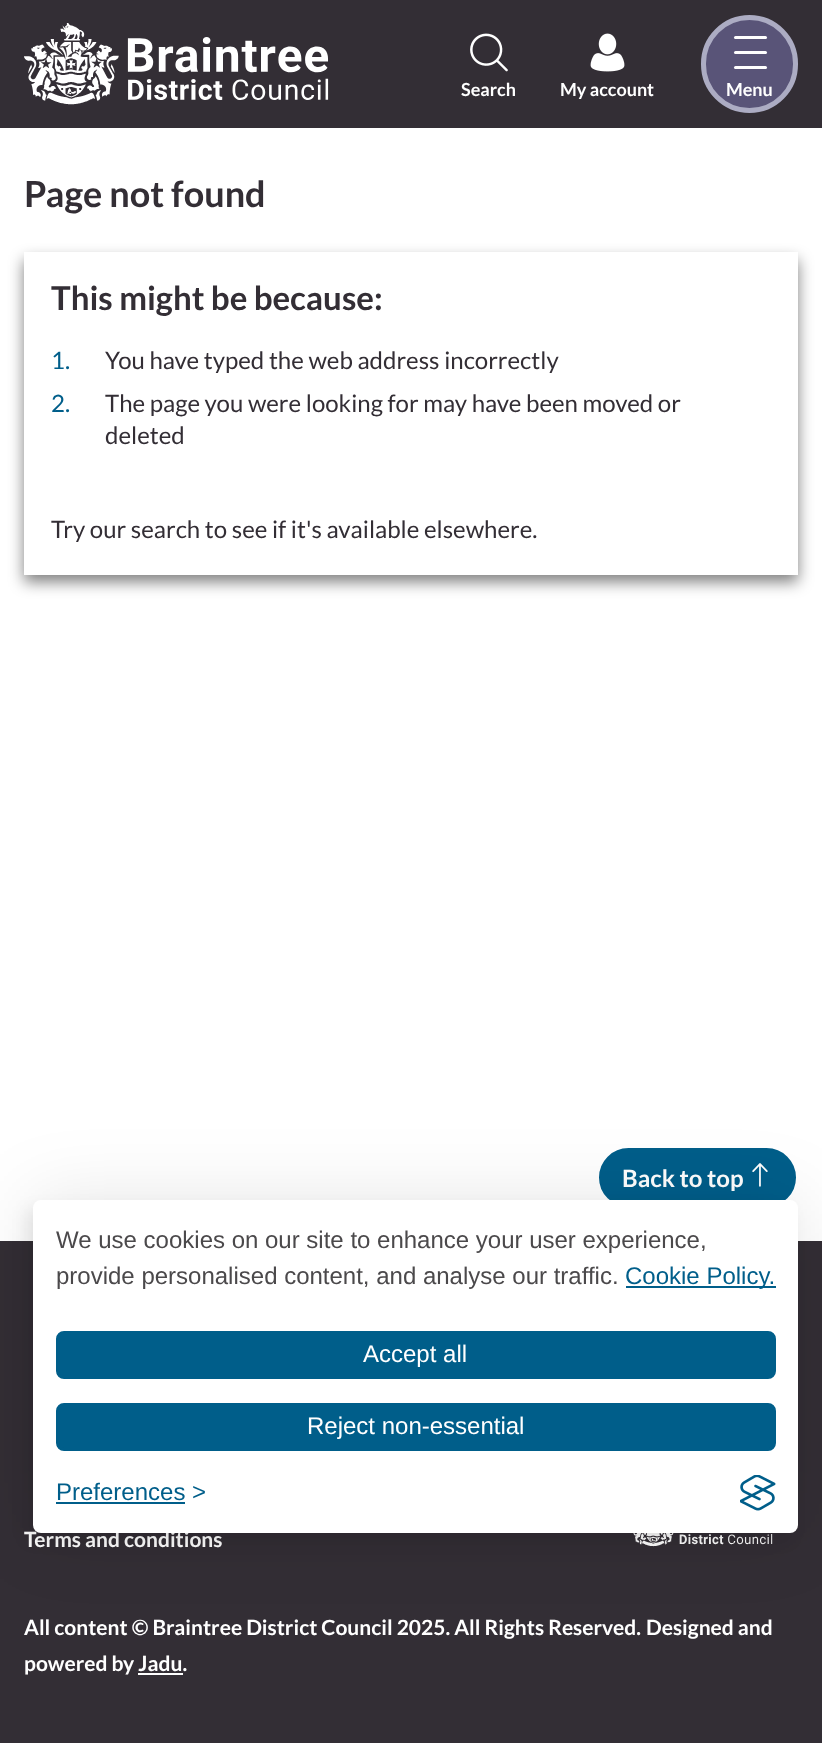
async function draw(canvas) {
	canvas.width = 822;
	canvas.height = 1743;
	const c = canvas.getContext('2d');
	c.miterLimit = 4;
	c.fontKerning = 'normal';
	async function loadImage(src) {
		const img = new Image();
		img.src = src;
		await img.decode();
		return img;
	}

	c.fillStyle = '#fff';
	c.fillRect(0, 0, 822, 1743);
	c.fillStyle = '#332e35';
	c.fillRect(0, 0, 822, 128);
	c.drawImage(await loadImage('img1.png'), 24, 23, 305, 82);
	c.drawImage(await loadImage('img2.png'), 470, 33, 38, 39);
	c.font = 'bold 18px Lato';
	c.fillStyle = '#fff';
	c.fillText('Search', 461, 96);
	c.drawImage(await loadImage('img3.png'), 590, 33, 35, 39);
	c.fillText('My account', 560, 96);
	c.fillStyle = '#595478';
	c.beginPath();
	c.roundRect(703.5, 17.5, 92, 93, 46);
	c.fill();
	c.strokeStyle = '#acacc3';
	c.lineWidth = 5;
	c.stroke();
	c.fillStyle = '#fff';
	c.beginPath();
	c.roundRect(734, 36, 33, 3, 1.5);
	c.fill();
	c.beginPath();
	c.roundRect(734, 51, 33, 3, 1.5);
	c.fill();
	c.beginPath();
	c.roundRect(734, 66, 33, 3, 1.5);
	c.fill();
	c.fillText('Menu', 726, 96);
	c.font = 'bold 36px Lato';
	c.fillStyle = '#332e35';
	c.fillText('Page not found', 24, 207);
	c.save();
	c.beginPath();
	c.moveTo(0, 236);
	c.lineTo(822, 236);
	c.lineTo(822, 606);
	c.lineTo(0, 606);
	c.closePath();
	c.moveTo(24, 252);
	c.lineTo(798, 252);
	c.lineTo(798, 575);
	c.lineTo(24, 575);
	c.closePath();
	c.clip('evenodd');
	c.fillStyle = '#00000080';
	c.filter = 'blur(7.5px)';
	c.beginPath();
	c.rect(24, 260, 774, 322);
	c.fill();
	c.filter = 'none';
	c.restore();
	c.font = 'bold 33px Lato';
	c.fillText('This might be because:', 51, 310);
	c.font = '24px Lato';
	c.fillStyle = '#005e8a';
	c.fillText('1.', 51, 369);
	c.fillStyle = '#332e35';
	c.fillText('You have typed the web address incorrectly', 105, 369);
	c.fillStyle = '#005e8a';
	c.fillText('2.', 51, 412);
	c.fillStyle = '#332e35';
	for (const [text, x, y] of [
		['The page you were looking for may have been moved or', 105, 412],
		['deleted', 105, 444],
		['Try our search to see if it\'s available elsewhere.', 51, 538],
	]) {
		c.fillText(text, x, y);
	}
	c.fillRect(0, 1241, 822, 502);
	c.fillStyle = '#005e8a';
	c.beginPath();
	c.roundRect(598, 1147, 199, 61, 30.5);
	c.fill();
	c.strokeStyle = '#fff';
	c.lineWidth = 2;
	c.stroke();
	c.font = 'bold 24px Lato';
	c.fillStyle = '#fff';
	c.fillText('Back to top', 622, 1187);
	c.drawImage(await loadImage('img4.png'), 752, 1163, 16, 24);
	c.font = 'bold 21px Lato';
	c.fillText('Terms and conditions', 24, 1547);
	c.drawImage(await loadImage('img5.png'), 633, 1533, 140, 14);
	for (const [text, x, y] of [
		['All content © Braintree District Council 2025. All Rights Reserved.', 24, 1635],
		['Designed and', 646, 1635],
		['powered by Jadu.', 24, 1671],
	]) {
		c.fillText(text, x, y);
	}
	c.fillRect(138, 1673, 45, 2);
	c.fillStyle = '#0000001a';
	c.filter = 'blur(37.5px)';
	c.beginPath();
	c.roundRect(33, 1200, 765, 333, 8);
	c.fill();
	c.filter = 'none';
	c.fillStyle = '#00000012';
	c.filter = 'blur(7.5px)';
	c.beginPath();
	c.roundRect(26, 1208, 765, 333, 8);
	c.fill();
	c.filter = 'none';
	c.fillStyle = '#fff';
	c.beginPath();
	c.roundRect(33, 1200, 765, 333, 8);
	c.fill();
	c.font = '24px Liberation Sans';
	c.fillStyle = '#4b494b';
	c.fillText('We use cookies on our site to enhance your user experience,', 56, 1248);
	c.fillText('provide personalised content, and analyse our traffic.', 56, 1284);
	c.fillStyle = '#005e8a';
	c.fillRect(626, 1286, 150, 2);
	c.fillText('Cookie Policy.', 625, 1284);
	c.beginPath();
	c.roundRect(57.5, 1332.5, 717, 45, 6.5);
	c.fill();
	c.strokeStyle = '#005e8a';
	c.lineWidth = 3;
	c.stroke();
	c.fillStyle = '#fff';
	c.fillText('Accept all', 363, 1362);
	c.fillStyle = '#005e8a';
	c.beginPath();
	c.roundRect(57.5, 1404.5, 717, 45, 6.5);
	c.fill();
	c.stroke();
	c.fillStyle = '#fff';
	c.fillText('Reject non-essential', 307, 1434);
	c.fillStyle = '#005e8a';
	c.fillText('Preferences', 56, 1500);
	c.fillRect(56, 1502, 129, 2);
	c.fillText('>', 192, 1500);
	c.drawImage(await loadImage('img6.png'), 740, 1475, 36, 36);
}

draw(document.querySelector('canvas'));
